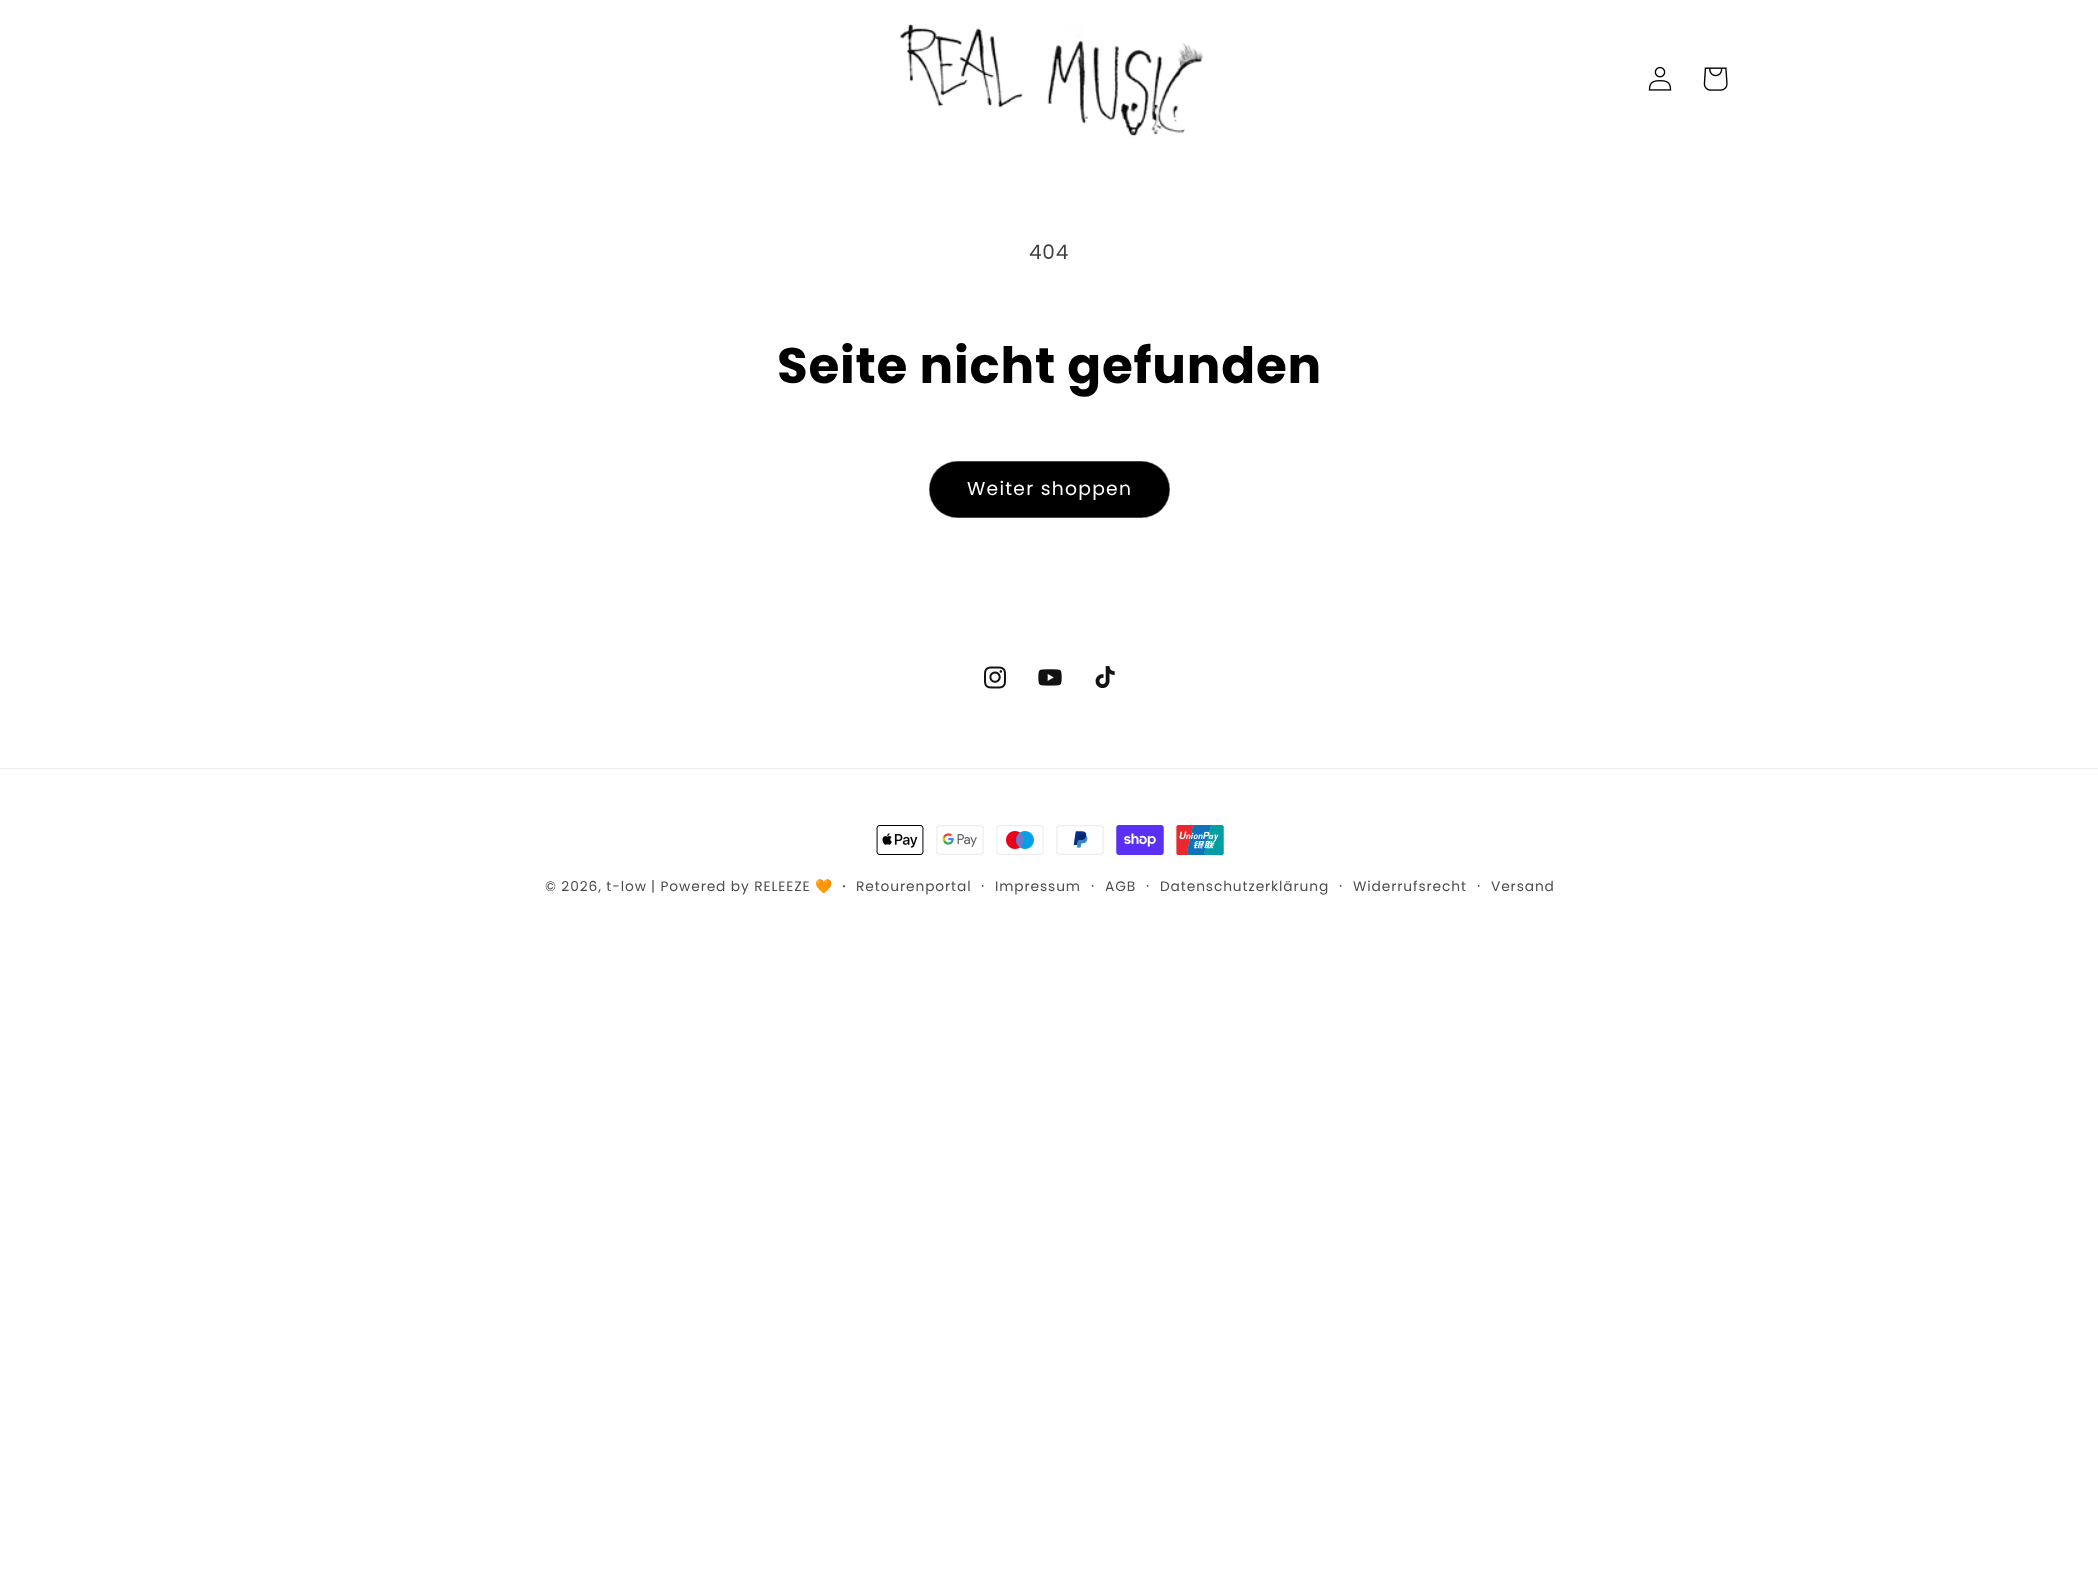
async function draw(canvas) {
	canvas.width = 2098;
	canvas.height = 1577;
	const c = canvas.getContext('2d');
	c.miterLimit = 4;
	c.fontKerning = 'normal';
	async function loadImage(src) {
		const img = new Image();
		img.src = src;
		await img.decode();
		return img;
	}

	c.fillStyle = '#fff';
	c.fillRect(0, 0, 2098, 1577);
	c.drawImage(await loadImage('img1.png'), 899, 23, 304, 114);
	c.drawImage(await loadImage('img2.png'), 1648, 66, 24, 25);
	c.drawImage(await loadImage('img3.png'), 1703, 67, 25, 24);
	c.letterSpacing = '0.75px';
	c.font = '20px Poppins';
	c.fillStyle = '#404040';
	c.fillText('404', 1029, 259);
	c.font = 'bold 50px Poppins';
	c.fillStyle = '#000';
	c.fillText('Seite nicht gefunden', 777, 383);
	c.beginPath();
	c.roundRect(929, 461, 241, 57, 28.5);
	c.fill();
	c.beginPath();
	c.roundRect(929.2, 461.2, 240.6, 56.6, 28.3);
	c.strokeStyle = '#fff';
	c.lineWidth = 0.4;
	c.stroke();
	c.letterSpacing = '1.25px';
	c.font = '18.75px Poppins';
	c.fillStyle = '#fff';
	c.fillText('Weiter shoppen', 967, 495);
	c.drawImage(await loadImage('img4.png'), 984, 666, 22, 23);
	c.drawImage(await loadImage('img5.png'), 1038, 669, 24, 17);
	c.drawImage(await loadImage('img6.png'), 1095, 666, 20, 23);
	c.fillStyle = '#ececec';
	c.fillRect(0, 768, 2098, 1);
	c.drawImage(await loadImage('img7.png'), 876, 825, 48, 30);
	c.drawImage(await loadImage('img8.png'), 936, 825, 48, 30);
	c.drawImage(await loadImage('img9.png'), 996, 825, 48, 30);
	c.drawImage(await loadImage('img10.png'), 1056, 825, 48, 30);
	c.drawImage(await loadImage('img11.png'), 1116, 825, 48, 30);
	c.drawImage(await loadImage('img12.png'), 1176, 825, 48, 30);
	c.letterSpacing = '0.9px';
	c.font = '13.75px Poppins';
	c.fillStyle = '#4d4d4d';
	c.fillText('© 2026, t-low', 545, 891);
	c.fillText('| Powered by RELEEZE', 651, 891);
	c.font = '13.75px Noto Color Emoji';
	c.fillText('🧡', 815, 891);
	c.font = '500 13.75px WenQuanYi Zen Hei';
	c.fillText('・', 837, 891);
	c.font = '13.75px Poppins';
	c.fillText('Retourenportal', 856, 891);
	c.font = '15px Poppins';
	c.fillText('·', 981, 891);
	c.font = '13.75px Poppins';
	c.fillText('Impressum', 995, 891);
	c.font = '15px Poppins';
	c.fillText('·', 1091, 891);
	c.font = '13.75px Poppins';
	c.fillText('AGB', 1105, 891);
	c.font = '15px Poppins';
	c.fillText('·', 1146, 891);
	c.font = '13.75px Poppins';
	c.fillText('Datenschutzerklärung', 1160, 891);
	c.font = '15px Poppins';
	c.fillText('·', 1339, 891);
	c.font = '13.75px Poppins';
	c.fillText('Widerrufsrecht', 1353, 891);
	c.font = '15px Poppins';
	c.fillText('·', 1477, 891);
	c.font = '13.75px Poppins';
	c.fillText('Versand', 1491, 891);
}

draw(document.querySelector('canvas'));
